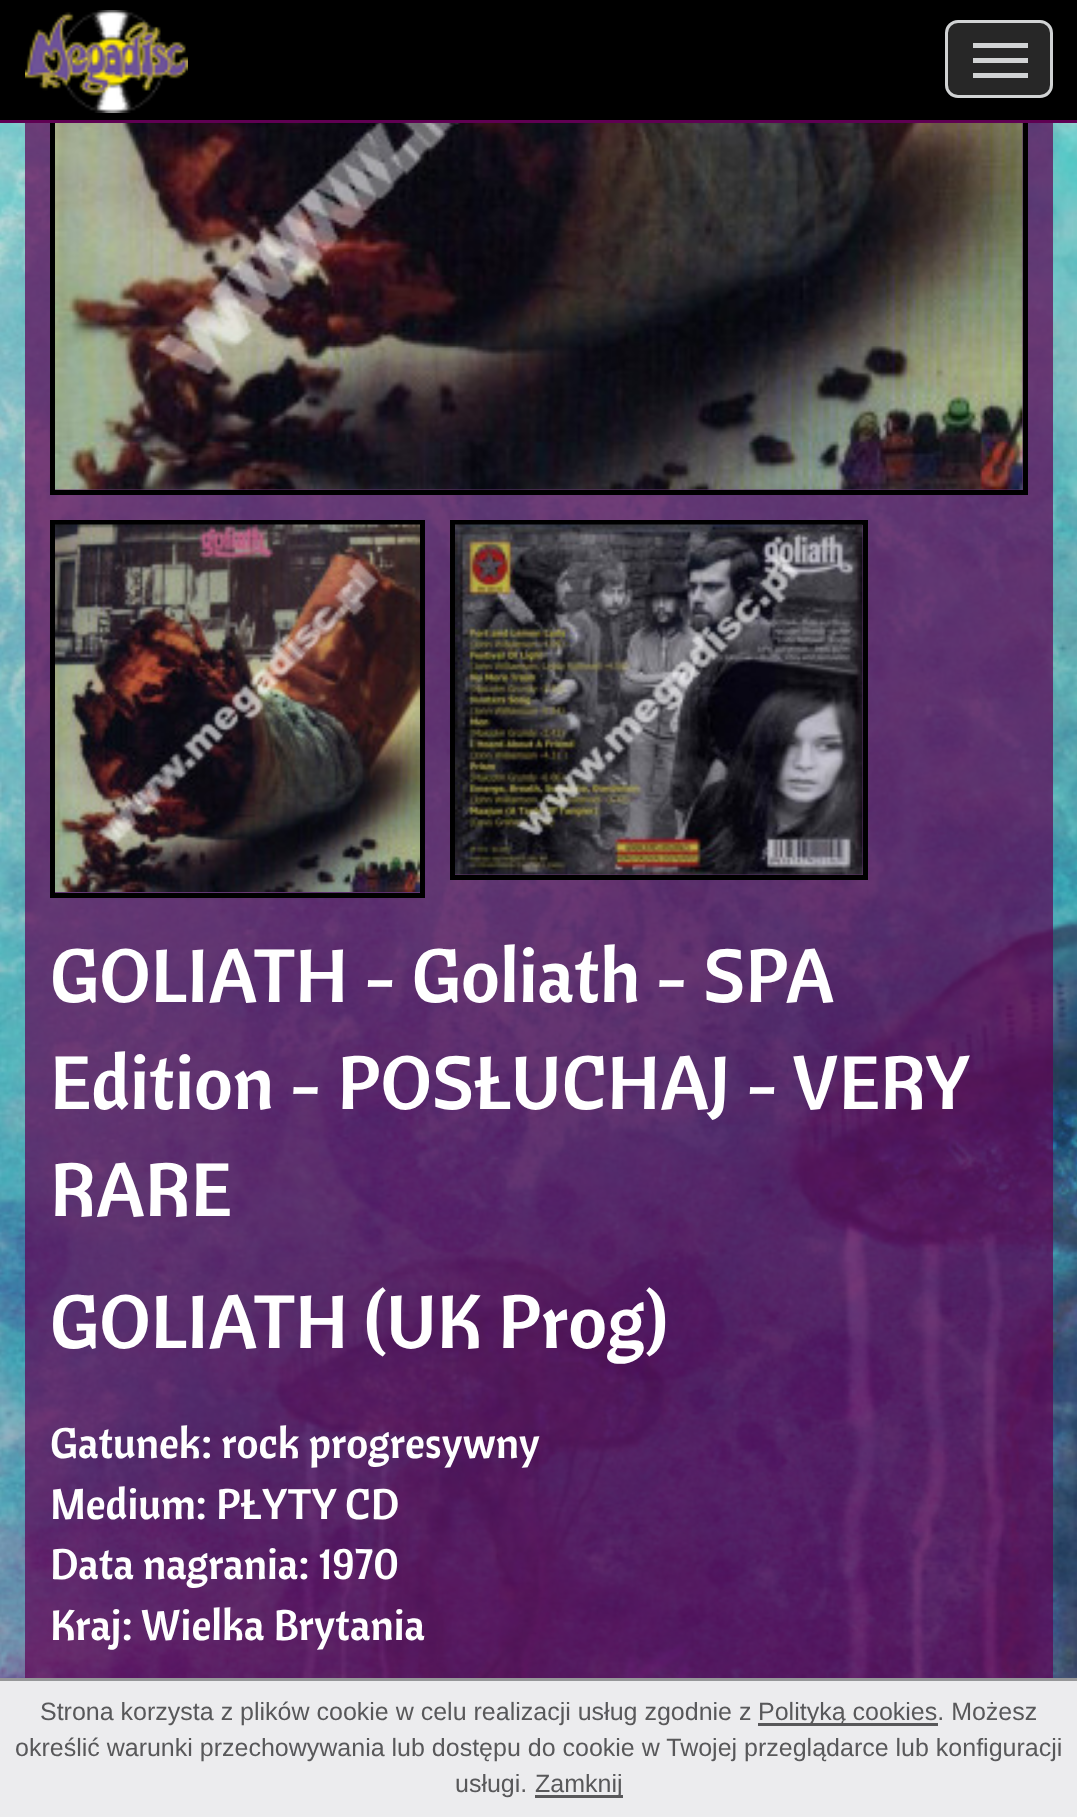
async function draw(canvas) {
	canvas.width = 1077;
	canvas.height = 1817;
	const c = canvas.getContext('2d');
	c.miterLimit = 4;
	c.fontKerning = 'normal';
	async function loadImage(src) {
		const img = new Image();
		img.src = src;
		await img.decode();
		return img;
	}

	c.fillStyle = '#fff';
	c.fillRect(0, 0, 1077, 1817);
	c.drawImage(await loadImage('img1.png'), 0, 123, 1077, 1555);
	c.strokeStyle = '#000';
	c.lineWidth = 5;
	c.strokeRect(52.5, -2.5, 973, 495);
	c.fillStyle = '#000';
	c.fillRect(0, 0, 1077, 120);
	c.fillStyle = '#5f0052';
	c.fillRect(0, 120, 1077, 3);
	c.drawImage(await loadImage('img2.png'), 25, 10, 163, 103);
	c.fillStyle = '#272727';
	c.beginPath();
	c.roundRect(946.5, 21.5, 105, 75, 11.5);
	c.fill();
	c.strokeStyle = '#d1d3d4';
	c.lineWidth = 3;
	c.stroke();
	for (const [x, y, w, h, color] of [
		[973, 43, 55, 5, '#d1d3d4'],
		[973, 58, 55, 5, '#d1d3d4'],
		[973, 73, 55, 5, '#d1d3d4'],
	]) {
		c.fillStyle = color;
		c.fillRect(x, y, w, h);
	}
	c.drawImage(await loadImage('img3.png'), 55, 123, 968, 367);
	c.strokeStyle = '#000';
	c.lineWidth = 5;
	c.strokeRect(52.5, 522.5, 370, 373);
	c.drawImage(await loadImage('img4.png'), 55, 524, 365, 368);
	c.strokeRect(452.5, 522.5, 413, 355);
	c.drawImage(await loadImage('img5.png'), 455, 524, 408, 351);
	c.wordSpacing = '-0.5px';
	c.font = '75px Cantora One';
	c.fillStyle = '#fff';
	c.fillText('GOLIATH - Goliath - SPA', 50, 1002);
	c.fillText('Edition - POSŁUCHAJ - VERY', 50, 1109);
	c.wordSpacing = '0px';
	c.fillText('RARE', 50, 1216);
	c.fillText('GOLIATH (UK Prog)', 50, 1348);
	c.font = '42.5px Cantora One';
	for (const [text, x, y] of [
		['Gatunek: rock progresywny', 50, 1458],
		['Medium: PŁYTY CD', 50, 1519],
		['Data nagrania: 1970', 50, 1579],
		['Kraj: Wielka Brytania', 50, 1640],
	]) {
		c.fillText(text, x, y);
	}
	c.fillStyle = '#ececee';
	c.fillRect(0, 1681, 1077, 136);
	c.fillStyle = '#969799';
	c.fillRect(0, 1678, 1077, 3);
	c.font = '25px Liberation Sans';
	c.fillStyle = '#58585a';
	c.fillText('Strona korzysta z plików cookie w celu realizacji usług zgodnie z', 40, 1720);
	c.fillRect(758, 1723, 180, 3);
	for (const [text, x, y] of [
		['Polityką cookies. Możesz', 758, 1720],
		['określić warunki przechowywania lub dostępu do cookie w Twojej przeglądarce lub konfiguracji', 15, 1756],
		['usługi.', 455, 1792],
	]) {
		c.fillText(text, x, y);
	}
	c.fillRect(535, 1795, 88, 3);
	c.fillText('Zamknij', 535, 1792);
}

draw(document.querySelector('canvas'));
